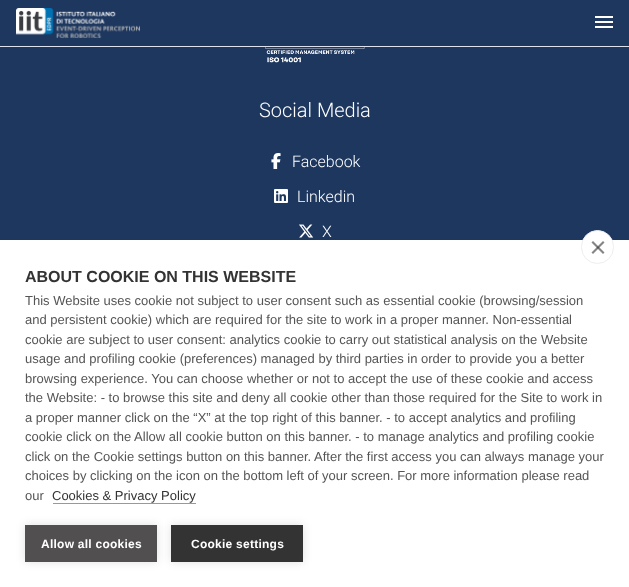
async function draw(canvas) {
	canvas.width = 629;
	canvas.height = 587;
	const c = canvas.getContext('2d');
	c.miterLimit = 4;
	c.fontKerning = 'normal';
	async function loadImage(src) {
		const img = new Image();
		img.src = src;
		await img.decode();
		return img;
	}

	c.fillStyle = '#1d375f';
	c.fillRect(0, 0, 629, 587);
	c.fillStyle = '#dee2ef';
	c.fillRect(0, 46, 629, 1);
	c.drawImage(await loadImage('img1.png'), 16, 8, 124, 30);
	c.drawImage(await loadImage('img2.png'), 595, 16, 18, 12);
	c.drawImage(await loadImage('img3.png'), 265, 47, 100, 16);
	c.font = '300 20px Roboto';
	c.fillStyle = '#fff';
	c.fillText('Social Media', 259, 117);
	c.drawImage(await loadImage('img4.png'), 271, 153, 10, 16);
	c.font = '300 16px Roboto';
	c.fillText('Facebook', 292, 167);
	c.drawImage(await loadImage('img5.png'), 274, 189, 14, 14);
	c.fillText('Linkedin', 297, 202);
	c.drawImage(await loadImage('img6.png'), 299, 224, 15, 14);
	c.fillText('X', 322, 237);
	c.fillRect(0, 240, 629, 347);
	c.beginPath();
	c.roundRect(581.5, 230.5, 32, 33, 16);
	c.fill();
	c.strokeStyle = '#eee';
	c.stroke();
	c.fillStyle = '#858585';
	c.beginPath();
	c.moveTo(591.5, 252.5);
	c.lineTo(603, 241);
	c.lineTo(604.5, 242.5);
	c.lineTo(593, 254);
	c.closePath();
	c.fill();
	c.fillStyle = '#33333399';
	c.beginPath();
	c.moveTo(593, 241);
	c.lineTo(604.5, 252.5);
	c.lineTo(603, 254);
	c.lineTo(591.5, 242.5);
	c.closePath();
	c.fill();
	c.font = 'bold 16px Liberation Sans';
	c.fillStyle = '#333';
	c.fillText('ABOUT COOKIE ON THIS WEBSITE', 25, 282);
	c.font = '13px Liberation Sans';
	c.fillStyle = '#555';
	for (const [text, x, y] of [
		['This Website uses cookie not subject to user consent such as essential cookie (browsing/session', 25, 305],
		['and persistent cookie) which are required for the site to work in a proper manner. Non-essential', 25, 324],
		['cookie are subject to user consent: analytics cookie to carry out statistical analysis on the Website', 25, 344],
		['usage and profiling cookie (preferences) managed by third parties in order to provide you a better', 25, 363],
		['browsing experience. You can choose whether or not to accept the use of these cookie and access', 25, 383],
		['the Website: - to browse this site and deny all cookie other than those required for the Site to work in', 25, 402],
		['a proper manner click on the “X” at the top right of this banner. - to accept analytics and profiling', 25, 422],
		['cookie click on the Allow all cookie button on this banner. - to manage analytics and profiling cookie', 25, 441],
		['click on the Cookie settings button on this banner. After the first access you can always manage your', 25, 461],
		['choices by clicking on the icon on the bottom left of your screen. For more information please read', 25, 480],
		['our', 25, 500],
	]) {
		c.fillText(text, x, y);
	}
	c.fillStyle = '#333';
	c.fillText('Cookies & Privacy Policy', 52, 500);
	c.fillStyle = '#999';
	c.fillRect(53, 503, 143, 1);
	c.fillStyle = '#0000001f';
	c.filter = 'blur(5px)';
	c.beginPath();
	c.rect(25, 525, 132, 37);
	c.fill();
	c.filter = 'none';
	c.fillStyle = '#524f50';
	c.fillRect(25, 525, 132, 37);
	c.letterSpacing = '0.25px';
	c.font = 'bold 12px Liberation Sans';
	c.fillStyle = '#fff';
	c.fillText('Allow all cookies', 41, 548);
	c.fillStyle = '#0000001f';
	c.filter = 'blur(5px)';
	c.beginPath();
	c.rect(171, 525, 132, 37);
	c.fill();
	c.filter = 'none';
	c.fillStyle = '#333';
	c.fillRect(171, 525, 132, 37);
	c.fillStyle = '#fff';
	c.fillText('Cookie settings', 191, 548);
}

draw(document.querySelector('canvas'));
